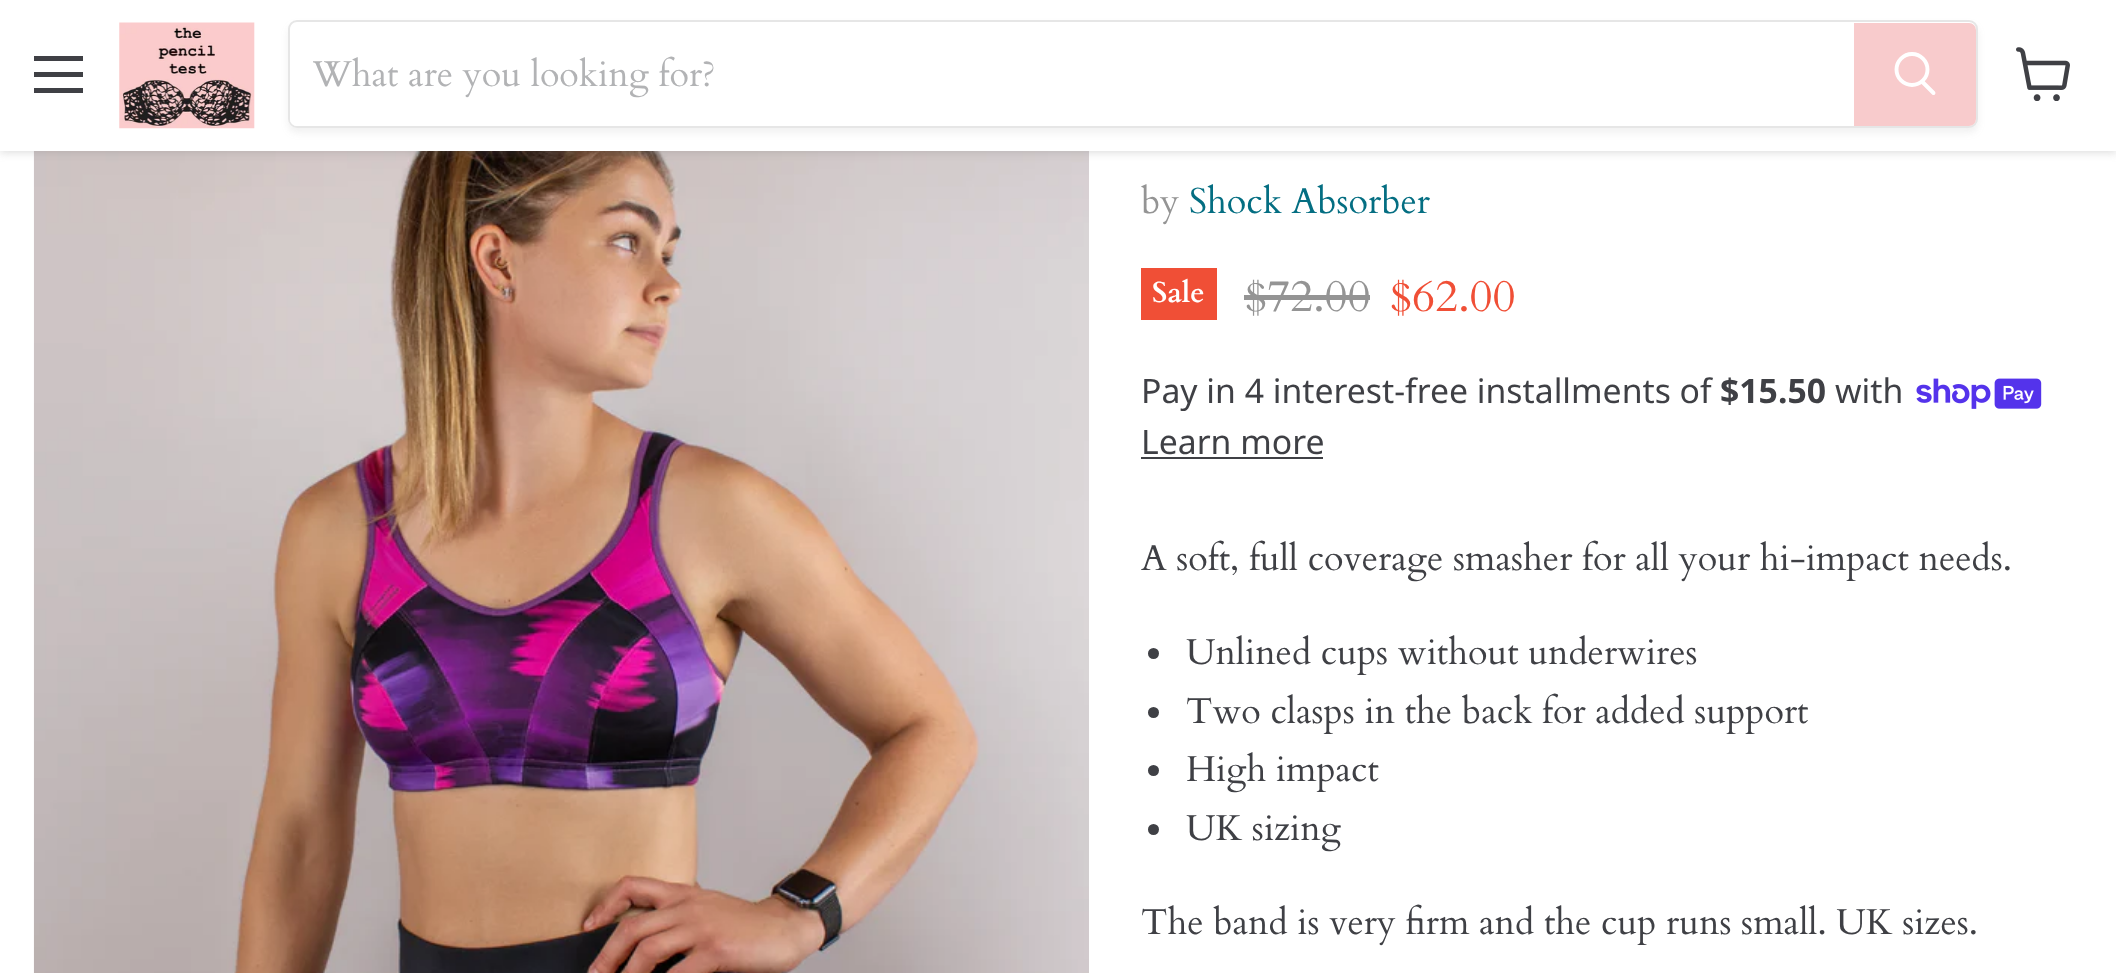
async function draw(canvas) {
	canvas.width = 2116;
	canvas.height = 973;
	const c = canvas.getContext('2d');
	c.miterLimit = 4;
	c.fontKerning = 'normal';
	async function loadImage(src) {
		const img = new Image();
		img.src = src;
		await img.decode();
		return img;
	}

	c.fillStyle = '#fff';
	c.fillRect(0, 0, 2116, 973);
	c.drawImage(await loadImage('img3.png'), 33, 151, 1056, 822);
	c.fillStyle = '#80808040';
	c.filter = 'blur(4.5px)';
	c.beginPath();
	c.rect(0, 2, 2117, 151);
	c.fill();
	c.filter = 'none';
	for (const [x, y, w, h, color] of [
		[0, 0, 2116, 151, '#fff'],
		[34, 56, 49, 5, '#3f4045'],
		[34, 72, 49, 5, '#3f4045'],
		[34, 88, 49, 5, '#3f4045'],
	]) {
		c.fillStyle = color;
		c.fillRect(x, y, w, h);
	}
	c.drawImage(await loadImage('img1.png'), 119, 22, 136, 107);
	c.save();
	c.beginPath();
	c.moveTo(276, 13);
	c.lineTo(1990, 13);
	c.lineTo(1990, 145);
	c.lineTo(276, 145);
	c.closePath();
	c.moveTo(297, 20);
	c.lineTo(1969, 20);
	c.bezierCurveTo(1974, 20, 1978, 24, 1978, 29);
	c.lineTo(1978, 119);
	c.bezierCurveTo(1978, 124, 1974, 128, 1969, 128);
	c.lineTo(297, 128);
	c.bezierCurveTo(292, 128, 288, 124, 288, 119);
	c.lineTo(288, 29);
	c.bezierCurveTo(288, 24, 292, 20, 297, 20);
	c.closePath();
	c.clip('evenodd');
	c.fillStyle = '#8080801c';
	c.filter = 'blur(3.5px)';
	c.beginPath();
	c.roundRect(288, 25, 1690, 108, 9);
	c.fill();
	c.filter = 'none';
	c.restore();
	c.beginPath();
	c.roundRect(289, 21, 1688, 106, 8);
	c.strokeStyle = '#80808033';
	c.lineWidth = 2;
	c.stroke();
	c.fillStyle = '#fff';
	c.beginPath();
	c.roundRect(290, 23, 1564, 103, [7, 0, 0, 7]);
	c.fill();
	c.save();
	c.beginPath();
	c.rect(313, 50, 1519, 49);
	c.clip();
	c.font = '36px Cardo';
	c.fillStyle = '#b2b3b5';
	c.fillText('What are you looking for?', 312, 86);
	c.restore();
	c.fillStyle = '#f8cbcc';
	c.beginPath();
	c.roundRect(1855, 24, 120, 101, [0, 6, 6, 0]);
	c.fill();
	c.strokeStyle = '#f8cbcc';
	c.stroke();
	c.beginPath();
	c.moveTo(1933.5, 93);
	c.lineTo(1922.5, 82);
	c.strokeStyle = '#fff';
	c.lineWidth = 3.9;
	c.lineCap = 'round';
	c.stroke();
	c.beginPath();
	c.arc(1912, 69.5, 15.5, 0, 2 * Math.PI);
	c.stroke();
	c.drawImage(await loadImage('img2.png'), 2016, 47, 54, 54);
	c.font = '36px Cardo';
	c.fillStyle = '#949494';
	c.fillText('by', 1141, 213);
	c.fillStyle = '#046e82';
	c.fillText('Shock Absorber', 1189, 213);
	c.fillStyle = '#f04f36';
	c.fillRect(1141, 268, 76, 52);
	c.font = 'bold 29px Cardo';
	c.fillStyle = '#fff';
	c.fillText('Sale', 1152, 302);
	c.font = '45px Cardo';
	c.fillStyle = '#949494';
	c.fillText('$72.00', 1244, 311);
	c.fillRect(1244, 295, 126, 5);
	c.fillStyle = '#f04f36';
	c.fillText('$62.00', 1389, 311);
	c.font = '33.75px Noto Sans';
	c.fillStyle = '#3f4045';
	c.fillText('Pay in 4 interest-free installments of', 1141, 403);
	c.font = 'bold 33.75px Noto Sans';
	c.fillText('$15.50', 1720, 403);
	c.font = '33.75px Noto Sans';
	c.fillText('with', 1835, 403);
	c.drawImage(await loadImage('img4.png'), 1916, 378, 126, 31);
	c.fillText('Learn more', 1141, 454);
	c.fillRect(1141, 457, 182, 2);
	c.font = '36px Cardo';
	c.fillText('A soft, full coverage smasher for all your hi-impact needs.', 1141, 570);
	c.beginPath();
	c.arc(1153.5, 653.5, 5.5, 0, 2 * Math.PI);
	c.fill();
	c.fillText('Unlined cups without underwires', 1186, 664);
	c.beginPath();
	c.arc(1153.5, 712.5, 5.5, 0, 2 * Math.PI);
	c.fill();
	c.fillText('Two clasps in the back for added support', 1186, 723);
	c.beginPath();
	c.arc(1153.5, 770.5, 5.5, 0, 2 * Math.PI);
	c.fill();
	c.fillText('High impact', 1186, 781);
	c.beginPath();
	c.arc(1153.5, 829.5, 5.5, 0, 2 * Math.PI);
	c.fill();
	c.fillText('UK sizing', 1186, 840);
	c.fillText('The band is very firm and the cup runs small. UK sizes.', 1141, 934);
}

draw(document.querySelector('canvas'));
